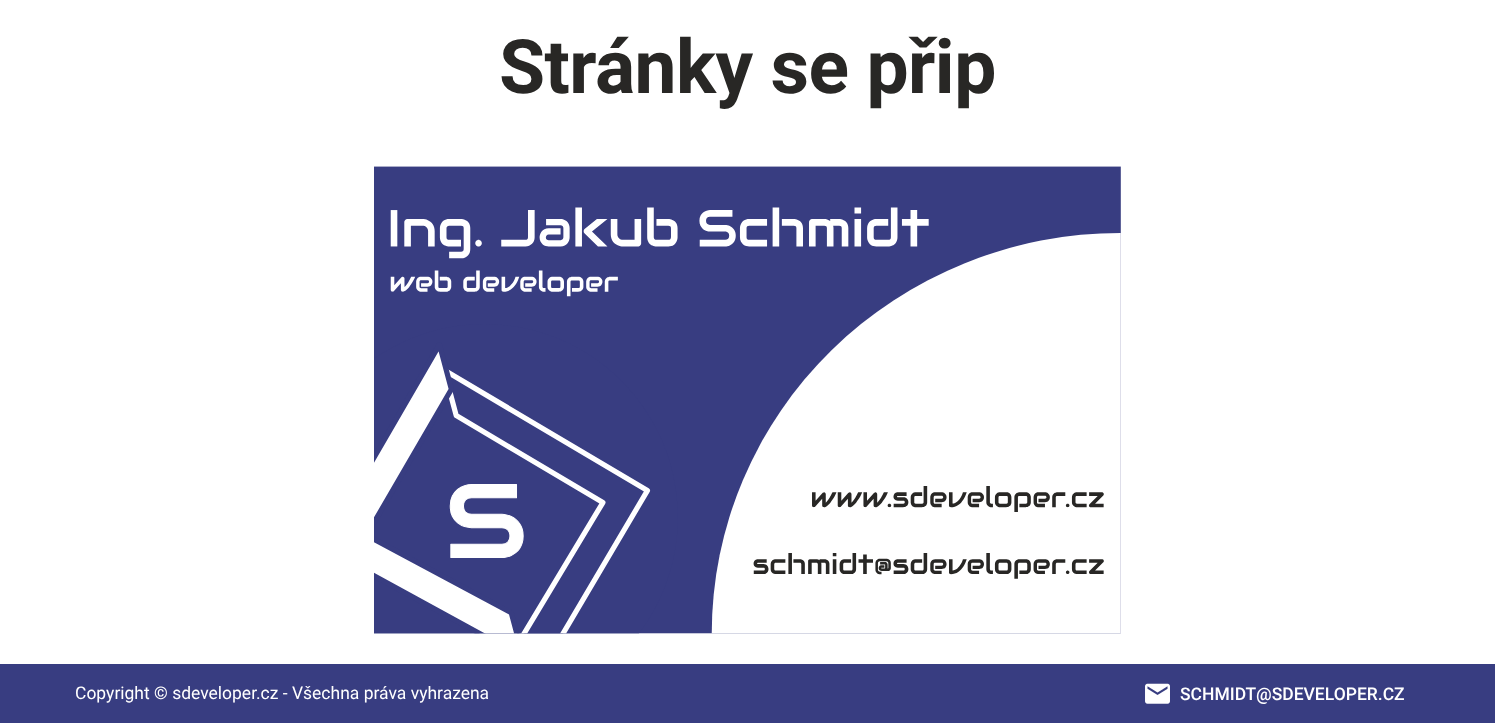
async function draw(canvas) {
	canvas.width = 1495;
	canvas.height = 723;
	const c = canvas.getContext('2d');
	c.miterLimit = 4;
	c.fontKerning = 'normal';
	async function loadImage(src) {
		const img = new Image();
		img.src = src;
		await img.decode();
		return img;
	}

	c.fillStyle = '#fff';
	c.fillRect(0, 0, 1495, 723);
	c.letterSpacing = '-0.6px';
	c.font = 'bold 75px Roboto';
	c.fillStyle = '#282725';
	c.fillText('Stránky se přip', 499, 93);
	c.drawImage(await loadImage('img1.png'), 374, 166, 747, 468);
	c.fillStyle = '#383d81';
	c.fillRect(0, 664, 1495, 59);
	c.letterSpacing = '0px';
	c.font = '17.5px Roboto';
	c.fillStyle = '#fff';
	c.fillText('Copyright © sdeveloper.cz - Všechna práva vyhrazena', 75, 699);
	c.drawImage(await loadImage('img2.png'), 1145, 683, 25, 21);
	c.font = '500 17.5px Roboto';
	c.fillText('SCHMIDT@SDEVELOPER.CZ', 1180, 700);
}

draw(document.querySelector('canvas'));
